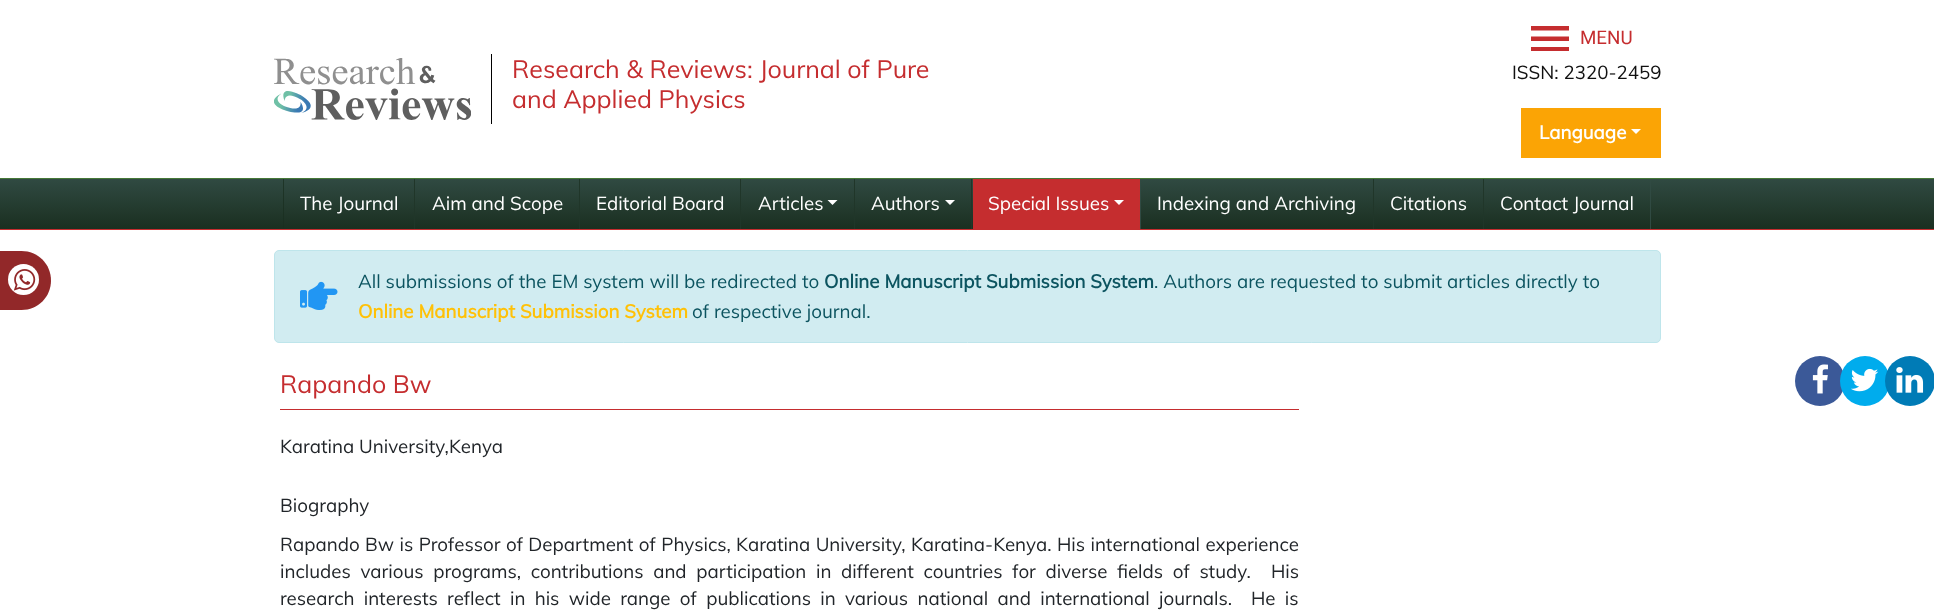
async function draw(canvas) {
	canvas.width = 1934;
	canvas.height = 613;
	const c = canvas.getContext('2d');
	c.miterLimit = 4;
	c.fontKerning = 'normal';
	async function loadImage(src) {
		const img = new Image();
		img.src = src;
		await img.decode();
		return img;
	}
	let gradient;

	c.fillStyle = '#fff';
	c.fillRect(0, 0, 1934, 613);
	c.drawImage(await loadImage('img1.png'), 274, 58, 197, 62);
	c.fillStyle = '#000';
	c.fillRect(491, 54, 1, 70);
	c.font = '25px Muli';
	c.fillStyle = '#c52d2f';
	c.fillText('Research & Reviews: Journal of Pure', 512, 78);
	c.fillText('and Applied Physics', 512, 108);
	c.font = '18.75px Roboto';
	c.fillText('MENU', 1580, 44);
	c.beginPath();
	c.moveTo(1531, 51);
	c.lineTo(1569, 51);
	c.lineTo(1569, 47);
	c.lineTo(1531, 47);
	c.closePath();
	c.moveTo(1531, 41);
	c.lineTo(1569, 41);
	c.lineTo(1569, 36.5);
	c.lineTo(1531, 36.5);
	c.closePath();
	c.moveTo(1531, 26);
	c.lineTo(1531, 30.5);
	c.lineTo(1569, 30.5);
	c.lineTo(1569, 26);
	c.closePath();
	c.fill();
	c.font = '18.75px Muli';
	c.fillStyle = '#101010';
	c.fillText('ISSN: 2320-2459', 1512, 79);
	c.fillStyle = '#fba405';
	c.fillRect(1521, 108, 140, 50);
	c.font = 'bold 18.75px Muli';
	c.fillStyle = '#fff';
	c.fillText('Language', 1539, 139);
	c.beginPath();
	c.moveTo(1631, 129);
	c.lineTo(1641, 129);
	c.lineTo(1636, 134);
	c.closePath();
	c.fill();
	gradient = c.createLinearGradient(968, 179, 968, 229);
	gradient.addColorStop(0, '#304a42');
	gradient.addColorStop(1, '#1a2f20');
	c.fillStyle = gradient;
	c.fillRect(0, 179, 1934, 50);
	c.fillStyle = '#467837';
	c.fillRect(0, 178, 1934, 1);
	c.fillStyle = '#c52d2f';
	c.fillRect(0, 229, 1934, 1);
	c.fillStyle = '#1a2f20bf';
	c.beginPath();
	c.moveTo(283, 179);
	c.lineTo(283, 229);
	c.lineTo(414, 229);
	c.lineTo(284, 229);
	c.lineTo(284, 179);
	c.closePath();
	c.fill();
	c.font = '18.75px Muli';
	c.fillStyle = '#fff';
	c.fillText('The Journal', 300, 210);
	c.fillStyle = '#203629';
	c.beginPath();
	c.moveTo(414, 179);
	c.lineTo(414, 229);
	c.lineTo(579, 229);
	c.lineTo(415, 229);
	c.lineTo(415, 179);
	c.closePath();
	c.fill();
	c.fillStyle = '#fff';
	c.fillText('Aim and Scope', 432, 210);
	c.fillStyle = '#203629';
	c.beginPath();
	c.moveTo(579, 179);
	c.lineTo(579, 229);
	c.lineTo(740, 229);
	c.lineTo(580, 229);
	c.lineTo(580, 179);
	c.closePath();
	c.fill();
	c.fillStyle = '#fff';
	c.fillText('Editorial Board', 596, 210);
	c.fillStyle = '#203629';
	c.beginPath();
	c.moveTo(740, 179);
	c.lineTo(740, 229);
	c.lineTo(854, 229);
	c.lineTo(741, 229);
	c.lineTo(741, 179);
	c.closePath();
	c.fill();
	c.fillStyle = '#fff';
	c.fillText('Articles', 758, 210);
	c.beginPath();
	c.moveTo(827.5, 200);
	c.lineTo(837.5, 200);
	c.lineTo(832.5, 205);
	c.closePath();
	c.fill();
	c.fillStyle = '#203629';
	c.beginPath();
	c.moveTo(854, 179);
	c.lineTo(854, 229);
	c.lineTo(971, 229);
	c.lineTo(855, 229);
	c.lineTo(855, 179);
	c.closePath();
	c.fill();
	c.fillStyle = '#fff';
	c.fillText('Authors', 871, 210);
	c.beginPath();
	c.moveTo(945, 200);
	c.lineTo(955, 200);
	c.lineTo(950, 205);
	c.closePath();
	c.fill();
	c.fillStyle = '#203629';
	c.beginPath();
	c.moveTo(971, 179);
	c.lineTo(971, 229);
	c.lineTo(1140, 229);
	c.lineTo(972, 229);
	c.lineTo(972, 179);
	c.closePath();
	c.fill();
	c.fillStyle = '#304a42';
	c.fillRect(1140, 179, 1, 50);
	c.fillStyle = '#c52d2f';
	c.fillRect(973, 179, 167, 50);
	c.fillStyle = '#fff';
	c.fillText('Special Issues', 988, 210);
	c.beginPath();
	c.moveTo(1114, 200);
	c.lineTo(1124, 200);
	c.lineTo(1119, 205);
	c.closePath();
	c.fill();
	c.fillText('Indexing and Archiving', 1157, 210);
	c.fillStyle = '#203629';
	c.beginPath();
	c.moveTo(1373, 179);
	c.lineTo(1373, 229);
	c.lineTo(1483, 229);
	c.lineTo(1374, 229);
	c.lineTo(1374, 179);
	c.closePath();
	c.fill();
	c.fillStyle = '#fff';
	c.fillText('Citations', 1390, 210);
	c.fillStyle = '#203629';
	c.beginPath();
	c.moveTo(1483, 179);
	c.lineTo(1483, 229);
	c.lineTo(1650, 229);
	c.lineTo(1484, 229);
	c.lineTo(1484, 179);
	c.closePath();
	c.fill();
	c.fillStyle = '#304a42';
	c.fillRect(1650, 179, 1, 50);
	c.fillStyle = '#fff';
	c.fillText('Contact Journal', 1500, 210);
	c.fillStyle = '#922829';
	c.beginPath();
	c.moveTo(-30, 251);
	c.lineTo(21.5, 251);
	c.bezierCurveTo(38, 251, 51, 264, 51, 280.5);
	c.bezierCurveTo(51, 297, 38, 310, 21.5, 310);
	c.lineTo(-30, 310);
	c.closePath();
	c.fill();
	c.fillStyle = '#fff';
	c.beginPath();
	c.arc(23.5, 279.5, 15.5, 0, 2 * Math.PI);
	c.fill();
	c.drawImage(await loadImage('img2.png'), 13, 269, 23, 22);
	c.fillStyle = '#d1ecf1';
	c.beginPath();
	c.roundRect(274.5, 250.5, 1386, 92, 4.5);
	c.fill();
	c.strokeStyle = '#bee5eb';
	c.stroke();
	c.drawImage(await loadImage('img3.png'), 300, 281, 38, 29);
	c.fillStyle = '#0c5460';
	c.fillText('All submissions of the EM system will be redirected to', 358, 288);
	c.font = 'bold 18.75px Muli';
	c.fillText('Online Manuscript Submission System', 824, 288);
	c.font = '18.75px Muli';
	c.fillText('. Authors are requested to submit articles directly to', 1154, 288);
	c.font = 'bold 18.75px Muli';
	c.fillStyle = '#ffc107';
	c.fillText('Online Manuscript Submission System', 358, 318);
	c.font = '18.75px Muli';
	c.fillStyle = '#0c5460';
	c.fillText('of respective journal.', 692, 318);
	c.fillStyle = '#c52d2f';
	c.fillRect(280, 409, 1019, 1);
	c.font = '25px Muli';
	c.fillText('Rapando Bw', 280, 393);
	c.font = '18.75px Muli';
	c.fillStyle = '#212529';
	c.fillText('Karatina University,Kenya', 280, 453);
	c.fillText('Biography', 280, 512);
	c.wordSpacing = '0.5px';
	c.fillText('Rapando Bw is Professor of Department of Physics, Karatina University, Karatina-Kenya. His international experience', 280, 551);
	c.wordSpacing = '4.75px';
	c.fillText('includes various programs, contributions and participation in different countries for diverse fields of study.', 280, 578);
	c.wordSpacing = '0px';
	c.fillText('His', 1271, 578);
	c.wordSpacing = '4.4px';
	c.fillText('research interests reflect in his wide range of publications in various national and international journals.', 280, 605);
	c.fillText('He is', 1251, 605);
	c.fillStyle = '#3b5998';
	c.beginPath();
	c.arc(1820, 381, 25, 0, 2 * Math.PI);
	c.fill();
	c.drawImage(await loadImage('img4.png'), 1812, 364, 16, 30);
	c.fillStyle = '#00aced';
	c.beginPath();
	c.arc(1865, 381, 25, 0, 2 * Math.PI);
	c.fill();
	c.drawImage(await loadImage('img5.png'), 1851, 368, 28, 24);
	c.fillStyle = '#007bb6';
	c.beginPath();
	c.arc(1910, 381, 25, 0, 2 * Math.PI);
	c.fill();
	c.drawImage(await loadImage('img6.png'), 1896, 367, 28, 26);
}

draw(document.querySelector('canvas'));
